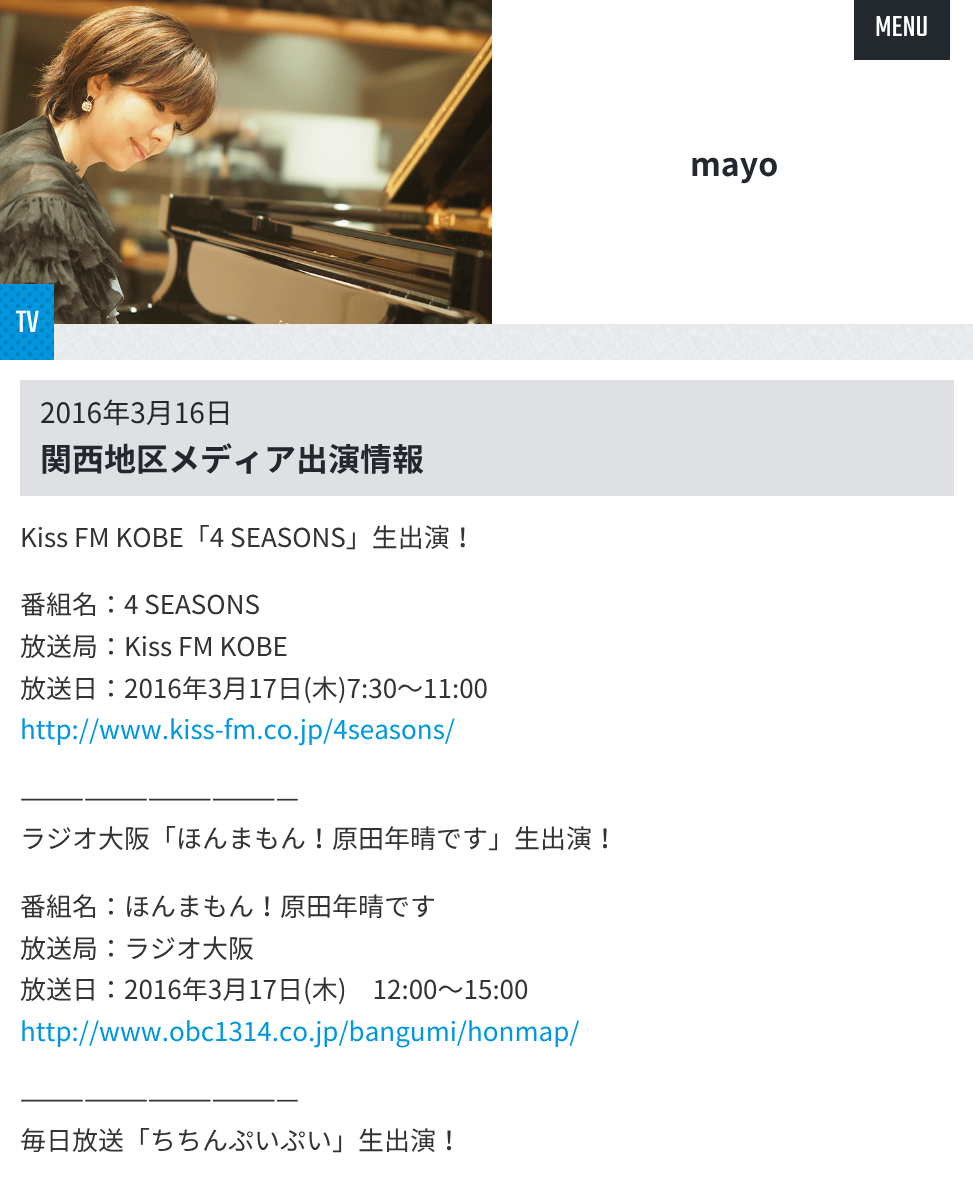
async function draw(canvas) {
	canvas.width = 973;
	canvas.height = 1202;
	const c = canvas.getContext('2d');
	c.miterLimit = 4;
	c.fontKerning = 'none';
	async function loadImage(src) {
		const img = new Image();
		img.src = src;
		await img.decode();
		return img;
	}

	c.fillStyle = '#fff';
	c.fillRect(0, 0, 973, 1202);
	c.drawImage(await loadImage('img1.png'), 54, 324, 919, 36);
	c.fillStyle = '#23272e';
	c.fillRect(854, 0, 96, 60);
	c.font = '300 32px Teko';
	c.fillStyle = '#fff';
	c.fillText('MENU', 875, 36);
	c.drawImage(await loadImage('img2.png'), 0, 0, 492, 324);
	c.font = 'bold 32px Noto Sans JP';
	c.fillStyle = '#23272e';
	c.fillText('mayo', 690, 176);
	c.drawImage(await loadImage('img3.png'), 0, 284, 54, 76);
	c.font = '300 34px Teko';
	c.fillStyle = '#fff';
	c.fillText('TV', 16, 332);
	c.fillStyle = '#dee0e4';
	c.fillRect(20, 380, 934, 116);
	c.font = '28px Noto Sans JP';
	c.fillStyle = '#23272e';
	c.fillText('2016年3月16日', 40, 423);
	c.font = 'bold 32px Noto Sans JP';
	c.fillText('関西地区メディア出演情報', 40, 471);
	c.font = '26px Noto Sans JP';
	c.fillStyle = '#333';
	for (const [text, x, y] of [
		['Kiss FM KOBE「4 SEASONS」生出演！', 20, 547],
		['番組名：4 SEASONS', 20, 614],
		['放送局：Kiss FM KOBE', 20, 656],
		['放送日：2016年3月17日(木)7:30〜11:00', 20, 698],
	]) {
		c.fillText(text, x, y);
	}
	c.fillStyle = '#0097df';
	c.fillText('http://www.kiss-fm.co.jp/4seasons/', 20, 739);
	c.fillStyle = '#333';
	for (const [text, x, y] of [
		['—————————————', 20, 807],
		['ラジオ大阪「ほんまもん！原田年晴です」生出演！', 20, 848],
		['番組名：ほんまもん！原田年晴です', 20, 916],
		['放送局：ラジオ大阪', 20, 958],
		['放送日：2016年3月17日(木)　12:00〜15:00', 20, 999],
	]) {
		c.fillText(text, x, y);
	}
	c.fillStyle = '#0097df';
	c.fillText('http://www.obc1314.co.jp/bangumi/honmap/', 20, 1041);
	c.fillStyle = '#333';
	c.fillText('—————————————', 20, 1108);
	c.fillText('毎日放送「ちちんぷいぷい」生出演！', 20, 1150);
}

draw(document.querySelector('canvas'));
